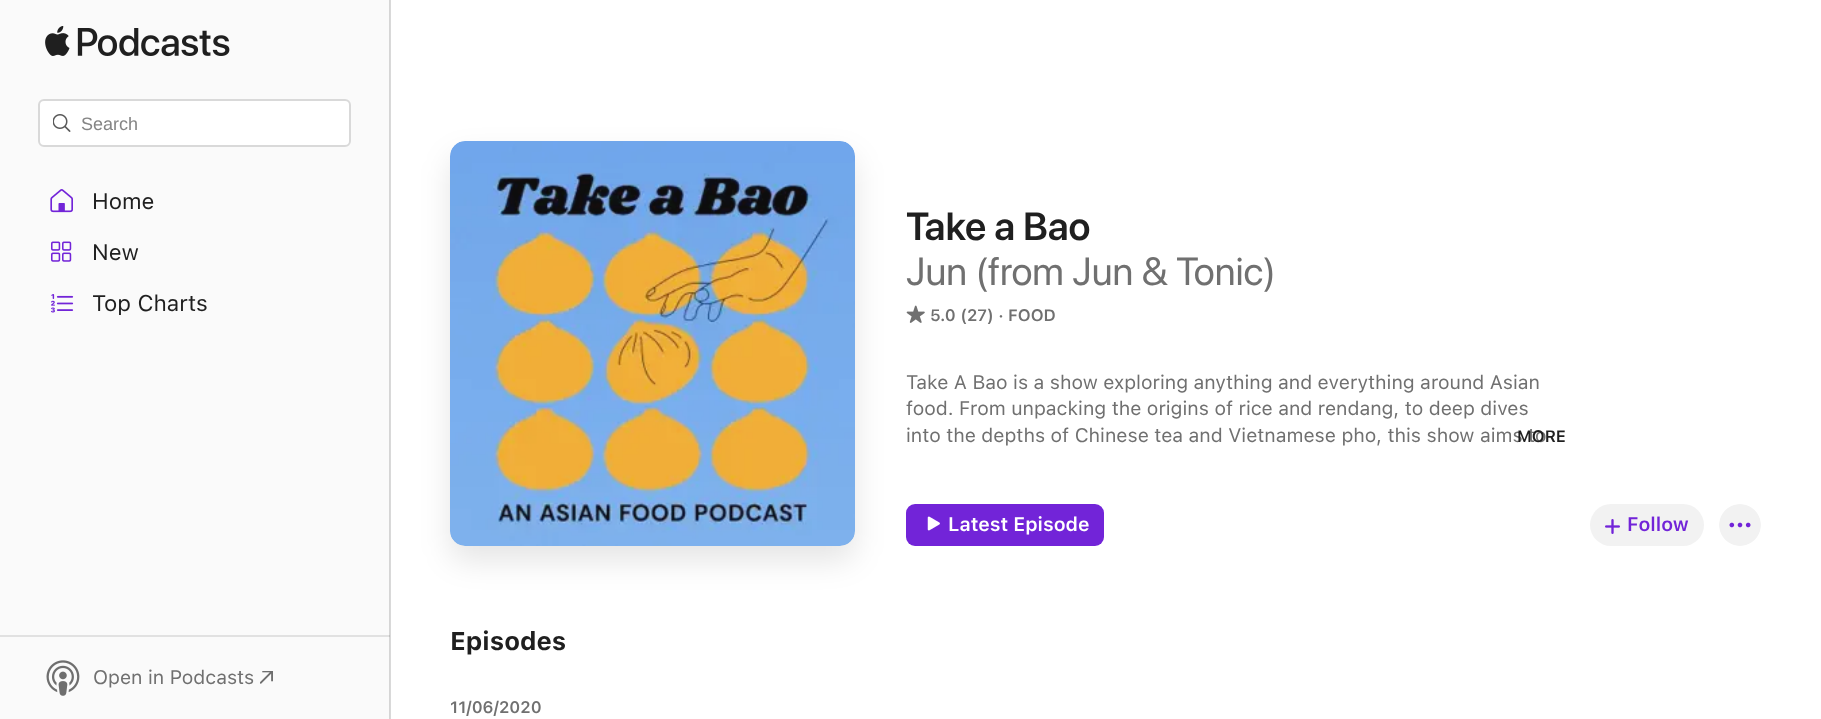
async function draw(canvas) {
	canvas.width = 1821;
	canvas.height = 719;
	const c = canvas.getContext('2d');
	c.miterLimit = 4;
	c.fontKerning = 'normal';
	async function loadImage(src) {
		const img = new Image();
		img.src = src;
		await img.decode();
		return img;
	}

	c.fillStyle = '#fff';
	c.fillRect(0, 0, 1821, 719);
	for (const [x, y, w, h, color] of [
		[390, 0, 1, 719, '#d9d9d9'],
		[0, 0, 389, 719, '#fafafa'],
		[0, 635, 390, 2, '#e1e1e1'],
		[389, 0, 1, 719, '#d5d5d5'],
		[389, 635, 1, 2, '#c0c0c0'],
	]) {
		c.fillStyle = color;
		c.fillRect(x, y, w, h);
	}
	c.drawImage(await loadImage('img1.png'), 45, 26, 185, 31);
	c.fillStyle = '#fff';
	c.beginPath();
	c.roundRect(39, 100, 311, 46, 5);
	c.fill();
	c.strokeStyle = '#d9d9d9';
	c.lineWidth = 2;
	c.stroke();
	c.drawImage(await loadImage('img2.png'), 53, 114, 18, 18);
	c.font = '18px Liberation Sans';
	c.fillStyle = '#858585';
	c.fillText('Search', 81, 130);
	c.drawImage(await loadImage('img3.png'), 50, 189, 23, 24);
	c.font = '22.5px "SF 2"';
	c.fillStyle = '#1f1f1f';
	c.fillText('Home', 92, 209);
	c.drawImage(await loadImage('img4.png'), 51, 241, 21, 21);
	c.fillText('New', 92, 260);
	c.drawImage(await loadImage('img5.png'), 51, 294, 23, 19);
	c.fillText('Top Charts', 92, 311);
	c.drawImage(await loadImage('img6.png'), 46, 660, 34, 36);
	c.font = '19.5px "SF 2"';
	c.fillStyle = '#707070';
	c.fillText('Open in Podcasts', 93, 684);
	c.drawImage(await loadImage('img7.png'), 260, 671, 13, 13);
	c.fillStyle = '#0000001a';
	c.filter = 'blur(15px)';
	c.beginPath();
	c.roundRect(450, 156, 405, 405, 15);
	c.fill();
	c.filter = 'none';
	c.drawImage(await loadImage('img8.png'), 450, 141, 405, 405);
	c.fillStyle = '#8080801a';
	c.beginPath();
	c.moveTo(465, 141);
	c.lineTo(840, 141);
	c.bezierCurveTo(848, 141, 855, 148, 855, 156);
	c.lineTo(855, 531);
	c.bezierCurveTo(855, 539, 848, 546, 840, 546);
	c.lineTo(465, 546);
	c.bezierCurveTo(457, 546, 450, 539, 450, 531);
	c.lineTo(450, 156);
	c.bezierCurveTo(450, 148, 457, 141, 465, 141);
	c.closePath();
	c.fill();
	c.font = '600 39px "SF 2"';
	c.fillStyle = '#1f1f1f';
	c.fillText('Take a Bao', 906, 240);
	c.font = '39px SF';
	c.fillStyle = '#707070';
	c.fillText('Jun (from Jun & Tonic)', 906, 285);
	c.drawImage(await loadImage('img9.png'), 906, 305, 19, 18);
	c.font = '600 16.5px SF';
	c.fillText('5.0 (27) · FOOD', 930, 321);
	c.font = '19.5px "SF 2"';
	for (const [text, x, y] of [
		['Take A Bao is a show exploring anything and everything around Asian', 906, 389],
		['food. From unpacking the origins of rice and rendang, to deep dives', 906, 415],
		['into the depths of Chinese tea and Vietnamese pho, this show aims to', 906, 442],
	]) {
		c.fillText(text, x, y);
	}
	c.font = '600 16.5px SF';
	c.fillStyle = '#1f1f1f';
	c.fillText('MORE', 1517, 442);
	c.fillStyle = '#7224d8';
	c.beginPath();
	c.roundRect(906, 504, 198, 42, 9);
	c.fill();
	c.drawImage(await loadImage('img10.png'), 927, 516, 13, 15);
	c.font = '600 19.5px SF';
	c.fillStyle = '#fff';
	c.fillText('Latest Episode', 948, 531);
	c.fillStyle = '#f2f2f2';
	c.beginPath();
	c.roundRect(1590, 504, 114, 42, 21);
	c.fill();
	c.drawImage(await loadImage('img11.png'), 1605, 519, 15, 15);
	c.fillStyle = '#7224d8';
	c.fillText('Follow', 1627, 531);
	c.drawImage(await loadImage('img12.png'), 1719, 504, 42, 42);
	c.font = 'bold 25.5px SF';
	c.fillStyle = '#1f1f1f';
	c.fillText('Episodes', 450, 650);
	c.font = '600 16.5px SF';
	c.fillStyle = '#707070';
	c.fillText('11/06/2020', 450, 713);
}

draw(document.querySelector('canvas'));
